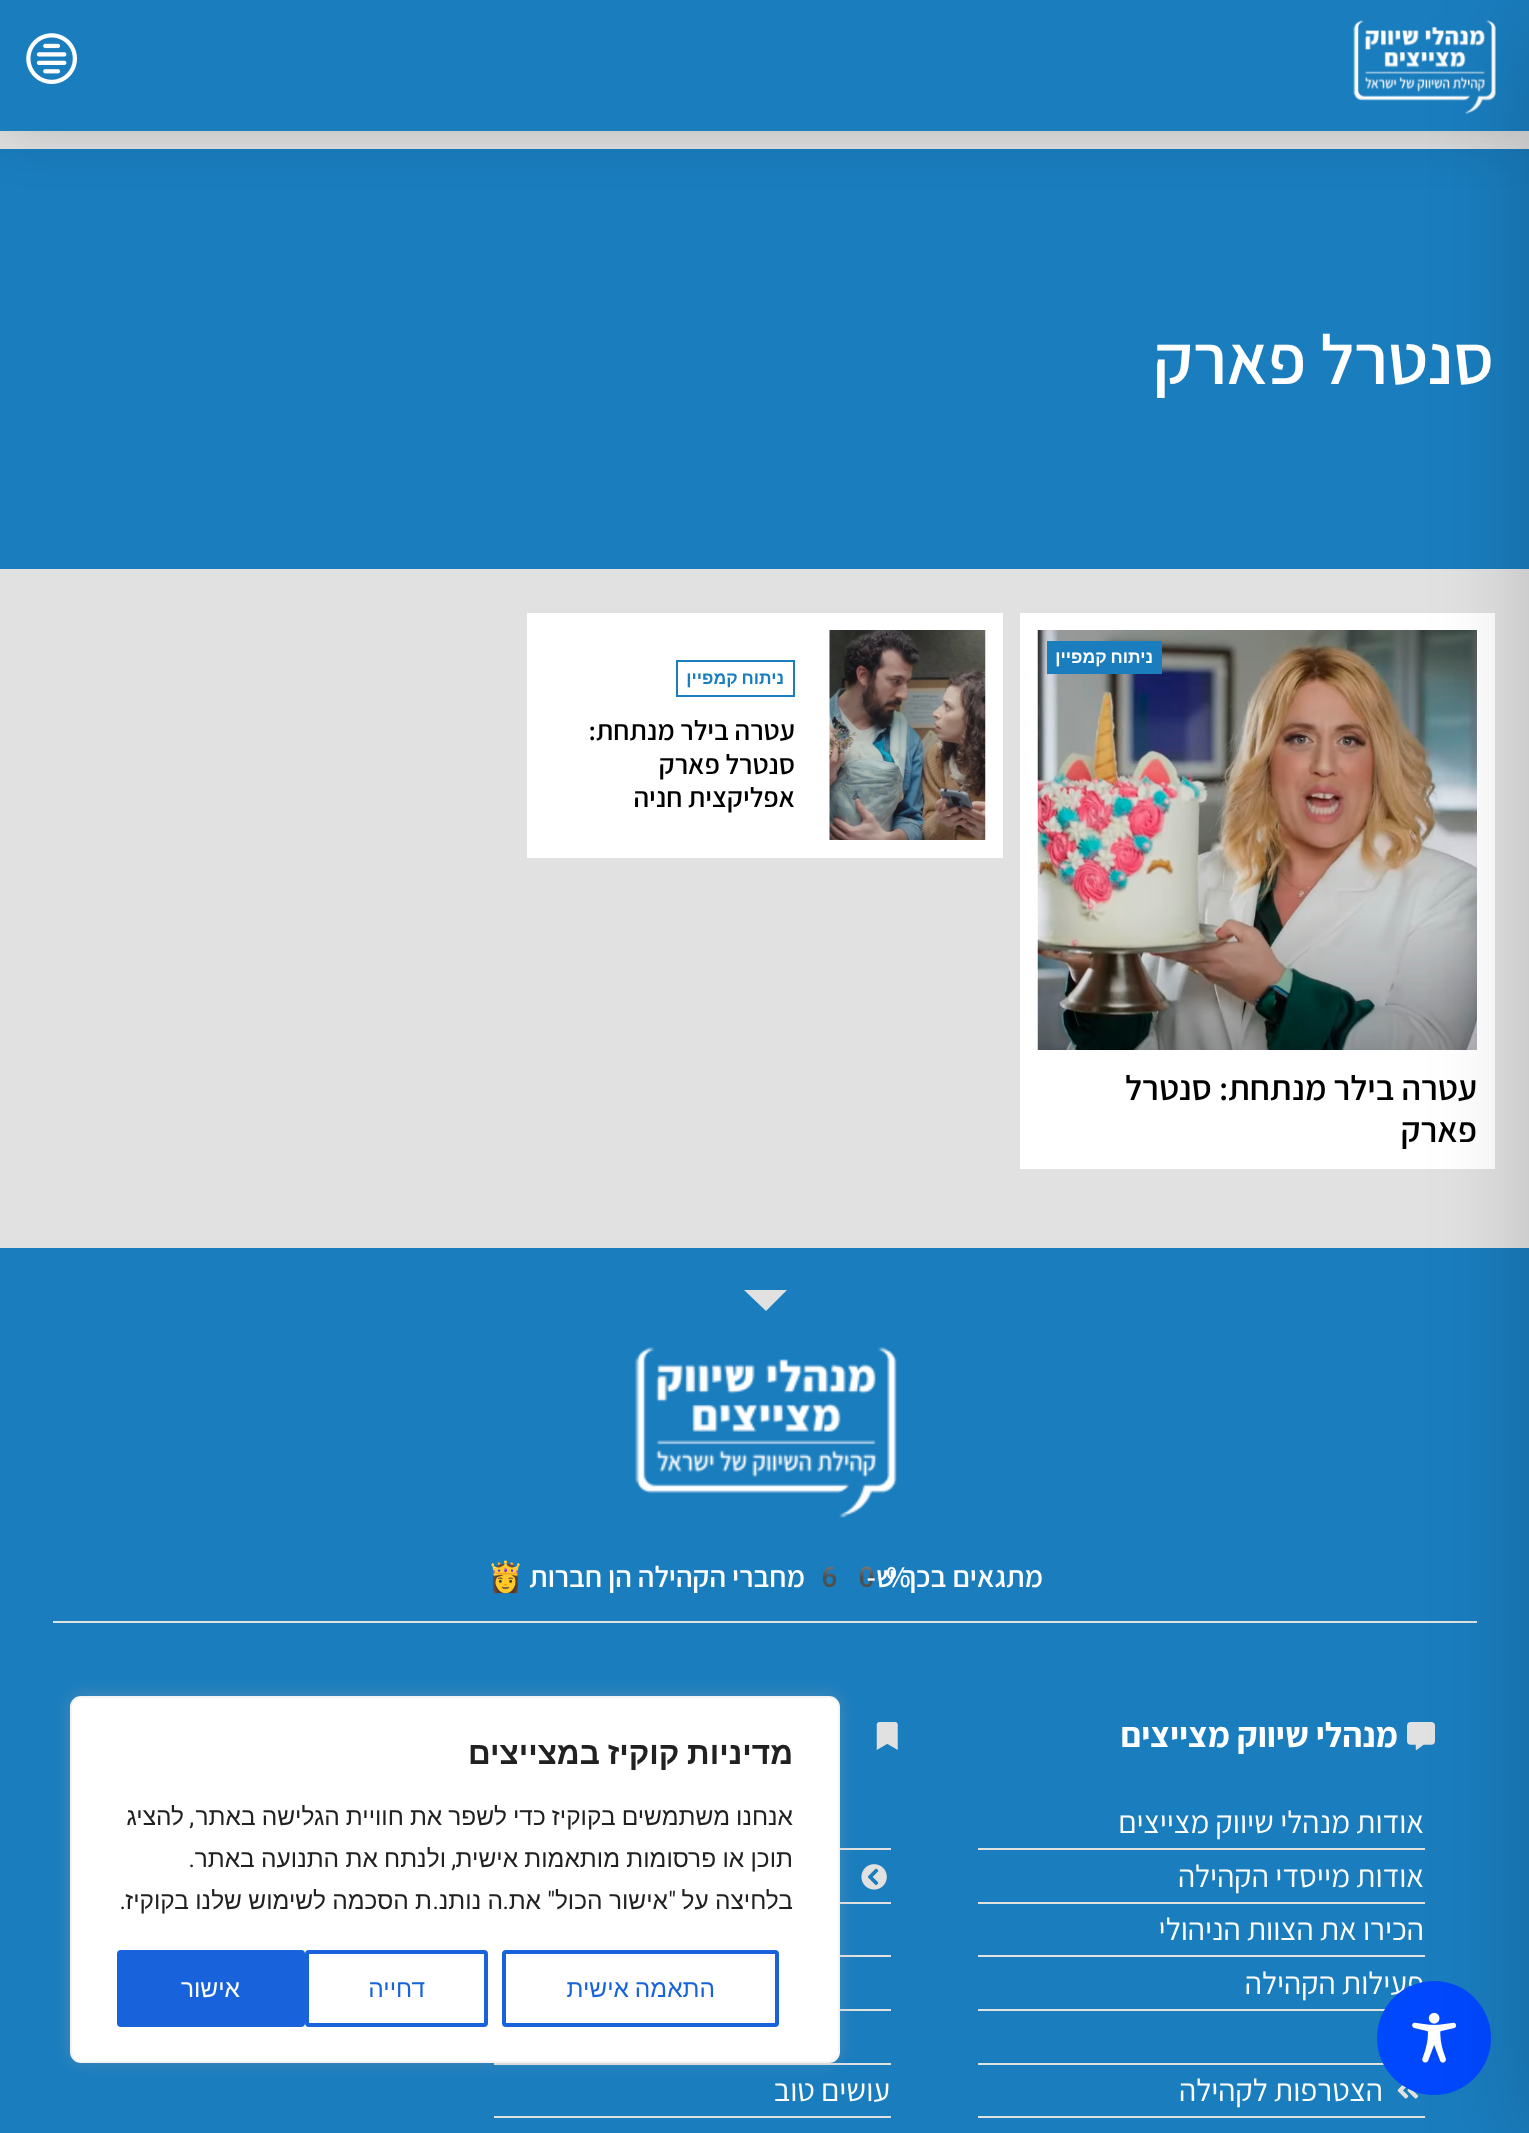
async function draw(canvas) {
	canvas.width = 1529;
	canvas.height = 2133;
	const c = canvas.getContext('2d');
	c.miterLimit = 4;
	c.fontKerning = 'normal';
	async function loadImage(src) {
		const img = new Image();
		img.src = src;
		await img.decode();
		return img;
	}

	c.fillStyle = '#e1e1e1';
	c.fillRect(0, 0, 1529, 2133);
	c.fillStyle = '#1a7dbe';
	c.fillRect(0, 149, 1529, 420);
	c.fillStyle = '#0000002e';
	c.filter = 'blur(28px)';
	c.beginPath();
	c.rect(0, 0, 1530, 131);
	c.fill();
	c.filter = 'none';
	c.fillStyle = '#1a7dbe';
	c.fillRect(0, 0, 1529, 131);
	c.drawImage(await loadImage('img1.png'), 1353, 20, 143, 94);
	c.drawImage(await loadImage('img2.png'), 26, 33, 51, 51);
	c.fillStyle = '#fff';
	c.fillRect(1020, 613, 475, 556);
	c.drawImage(await loadImage('img3.png'), 1037, 630, 440, 420);
	c.fillStyle = '#1a7dbe';
	c.fillRect(0, 1248, 1529, 885);
	c.fillStyle = '#e1e1e1';
	c.fillRect(53, 1621, 1424, 2);
	c.drawImage(await loadImage('img6.png'), 1407, 1722, 28, 28);
	for (const [x, y, w, h, color] of [
		[978, 1848, 447, 2, '#e1e1e1'],
		[978, 1902, 447, 2, '#e1e1e1'],
		[978, 1955, 447, 2, '#e1e1e1'],
		[978, 2009, 407, 2, '#e1e1e1'],
		[978, 2063, 406, 2, '#e1e1e1'],
	]) {
		c.fillStyle = color;
		c.fillRect(x, y, w, h);
	}
	c.drawImage(await loadImage('img7.png'), 1397, 2085, 22, 14);
	c.fillRect(978, 2116, 447, 2);
	c.direction = 'rtl';
	c.font = '31.5px Assistant';
	c.fillStyle = '#fff';
	c.fillText('פעילות הקהילה', 1424, 1994);
	c.fillText('הצטרפות לקהילה', 1383, 2101);
	c.fillStyle = '#0048fe';
	c.beginPath();
	c.arc(1434, 2038, 57, 0, 2 * Math.PI);
	c.fill();
	c.drawImage(await loadImage('img10.png'), 1412, 2012, 45, 51);
	c.fillStyle = '#00000033';
	c.filter = 'blur(52.5px)';
	c.beginPath();
	c.rect(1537, 18, 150, 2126);
	c.fill();
	c.filter = 'none';
	c.font = '600 70px Assistant';
	c.fillStyle = '#fff';
	c.fillText('סנטרל פארק', 1494, 384);
	c.fillStyle = '#1a7dbe';
	c.fillRect(1047, 641, 115, 33);
	c.wordSpacing = '-1px';
	c.font = 'bold 17.5px Liberation Sans';
	c.fillStyle = '#fff';
	c.fillText('ניתוח קמפיין', 1153, 663);
	c.wordSpacing = '0px';
	c.font = '600 35px Assistant';
	c.fillStyle = '#000';
	c.fillText('עטרה בילר מנתחת: סנטרל', 1477, 1100);
	c.fillText('פארק', 1477, 1142);
	c.fillStyle = '#fff';
	c.fillRect(527, 613, 476, 245);
	c.drawImage(await loadImage('img4.png'), 829, 630, 157, 210);
	c.strokeStyle = '#1a7dbe';
	c.lineWidth = 2;
	c.strokeRect(677, 661, 117, 35);
	c.wordSpacing = '-1px';
	c.font = 'bold 17.5px Liberation Sans';
	c.fillStyle = '#1a7dbe';
	c.fillText('ניתוח קמפיין', 784, 684);
	c.wordSpacing = '0px';
	c.font = '600 28px Assistant';
	c.fillStyle = '#000';
	for (const [text, x, y] of [
		['עטרה בילר מנתחת:', 795, 740],
		['סנטרל פארק', 795, 774],
		['אפליקצית חניה', 795, 807],
	]) {
		c.fillText(text, x, y);
	}
	c.fillStyle = '#e1e1e1';
	c.beginPath();
	c.moveTo(766, 1311);
	c.lineTo(744, 1290);
	c.lineTo(787, 1290);
	c.closePath();
	c.fill();
	c.drawImage(await loadImage('img5.png'), 635, 1347, 262, 171);
	c.direction = 'ltr';
	c.font = '600 29.75px Assistant';
	c.fillStyle = '#fff';
	c.fillText('%', 886, 1587);
	c.font = 'bold 29.75px Noto Color Emoji';
	c.fillText('60', 811, 1587);
	c.direction = 'rtl';
	c.font = '600 29.75px Assistant';
	c.fillText('מחברי הקהילה הן חברות', 805, 1587);
	c.font = 'bold 29.75px Noto Color Emoji';
	c.fillText('👸', 524, 1587);
	c.font = '600 29.75px Assistant';
	c.fillText('מתגאים בכך ש-', 1043, 1587);
	c.font = 'bold 35px Assistant';
	c.fillText('מנהלי שיווק מצייצים', 1398, 1747);
	c.font = '31.5px Assistant';
	for (const [text, x, y] of [
		['אודות מנהלי שיווק מצייצים', 1424, 1833],
		['אודות מייסדי הקהילה', 1424, 1887],
		['הכירו את הצוות הניהולי', 1424, 1940],
	]) {
		c.fillText(text, x, y);
	}
	c.drawImage(await loadImage('img8.png'), 876, 1722, 22, 28);
	c.fillStyle = '#e1e1e1';
	c.fillRect(840, 1848, 51, 2);
	c.drawImage(await loadImage('img9.png'), 861, 1864, 26, 26);
	for (const [x, y, w, h, color] of [
		[840, 1902, 51, 2, '#e1e1e1'],
		[840, 1955, 51, 2, '#e1e1e1'],
		[840, 2009, 51, 2, '#e1e1e1'],
		[494, 2063, 397, 2, '#e1e1e1'],
	]) {
		c.fillStyle = color;
		c.fillRect(x, y, w, h);
	}
	c.fillStyle = '#fff';
	c.fillText('עושים טוב', 890, 2101);
	c.fillStyle = '#e1e1e1';
	c.fillRect(494, 2116, 397, 2);
	c.fillStyle = '#acabab4d';
	c.filter = 'blur(9px)';
	c.beginPath();
	c.roundRect(70, 1694, 770, 368, 11);
	c.fill();
	c.filter = 'none';
	c.fillStyle = '#fff';
	c.beginPath();
	c.roundRect(71, 1697, 768, 365, 10);
	c.fill();
	c.strokeStyle = '#f4f4f4';
	c.stroke();
	c.wordSpacing = '-1px';
	c.font = 'bold 31.5px Liberation Sans';
	c.fillStyle = '#212121';
	c.fillText('מדיניות קוקיז במצייצים', 793, 1764);
	c.wordSpacing = '-0.75px';
	c.font = '24.5px Liberation Sans';
	c.fillText('אנחנו משתמשים בקוקיז כדי לשפר את חוויית הגלישה באתר', 793, 1825);
	c.wordSpacing = '0px';
	c.font = '24.5px Roboto';
	c.fillText(',', 194, 1825);
	c.font = '24.5px Liberation Sans';
	c.fillText('להציג', 184, 1825);
	c.wordSpacing = '-0.5px';
	c.fillText('תוכן או פרסומות מותאמות אישית', 793, 1867);
	c.wordSpacing = '0px';
	c.font = '24.5px Roboto';
	c.fillText(',', 456, 1867);
	c.wordSpacing = '-0.5px';
	c.font = '24.5px Liberation Sans';
	c.fillText('ולנתח את התנועה באתר', 446, 1867);
	c.wordSpacing = '0px';
	c.font = '24.5px Roboto';
	c.fillText('.', 195, 1867);
	c.wordSpacing = '-0.5px';
	c.font = '24.5px Liberation Sans';
	c.fillText('בלחיצה על', 793, 1909);
	c.wordSpacing = '0px';
	c.font = '24.5px Roboto';
	c.fillText('"', 676, 1909);
	c.wordSpacing = '-0.5px';
	c.font = '24.5px Liberation Sans';
	c.fillText('אישור הכול', 668, 1909);
	c.wordSpacing = '0px';
	c.font = '24.5px Roboto';
	c.fillText('"', 555, 1909);
	c.font = '24.5px Liberation Sans';
	c.fillText('את', 541, 1909);
	c.font = '24.5px Roboto';
	c.fillText('.', 509, 1909);
	c.wordSpacing = '-0.5px';
	c.font = '24.5px Liberation Sans';
	c.fillText('ה נותנ', 503, 1909);
	c.wordSpacing = '0px';
	c.font = '24.5px Roboto';
	c.fillText('.', 439, 1909);
	c.wordSpacing = '-0.5px';
	c.font = '24.5px Liberation Sans';
	c.fillText('ת הסכמה לשימוש שלנו בקוקיז', 432, 1909);
	c.wordSpacing = '0px';
	c.font = '24.5px Roboto';
	c.fillText('.', 126, 1909);
	c.beginPath();
	c.roundRect(504, 1952, 273, 73, 2);
	c.strokeStyle = '#1863dc';
	c.lineWidth = 4;
	c.stroke();
	c.wordSpacing = '-1px';
	c.font = '24.5px Liberation Sans';
	c.fillStyle = '#1863dc';
	c.fillText('התאמה אישית', 715, 1997);
	c.beginPath();
	c.roundRect(307, 1952, 179, 73, 2);
	c.stroke();
	c.wordSpacing = '0px';
	c.fillText('דחייה', 425, 1997);
	c.beginPath();
	c.roundRect(119, 1952, 184, 73, 2);
	c.fill();
	c.stroke();
	c.fillStyle = '#fff';
	c.fillText('אישור', 240, 1997);
}

draw(document.querySelector('canvas'));
